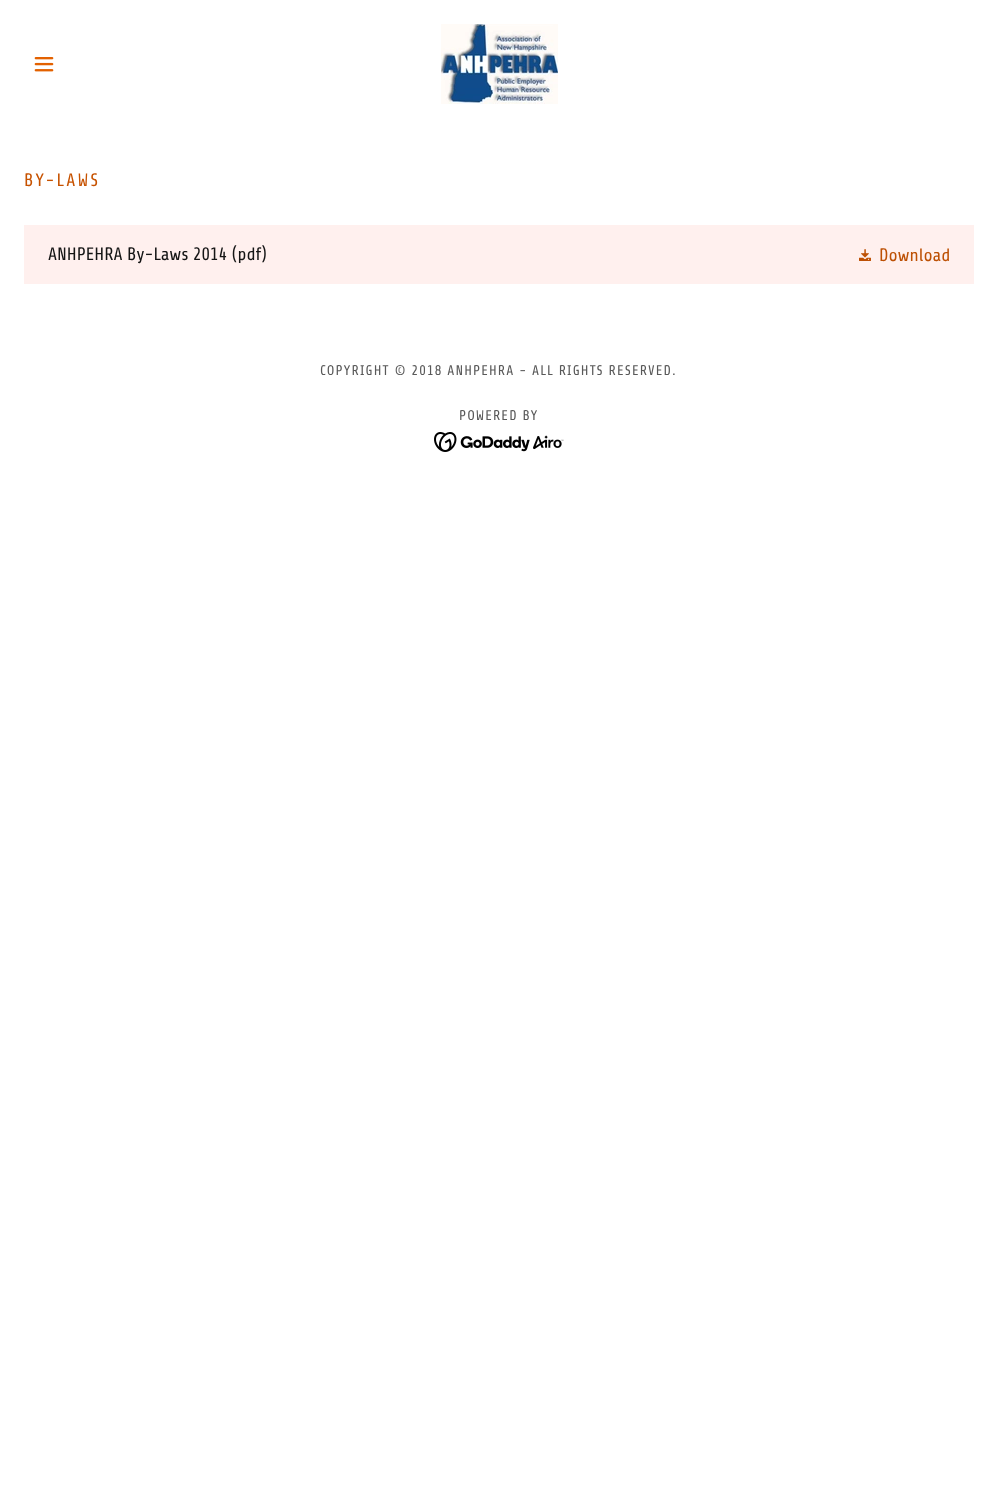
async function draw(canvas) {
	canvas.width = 998;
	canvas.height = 1497;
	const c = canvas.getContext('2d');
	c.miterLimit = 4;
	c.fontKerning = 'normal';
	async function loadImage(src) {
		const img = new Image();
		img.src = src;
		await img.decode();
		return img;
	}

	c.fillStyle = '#fff';
	c.fillRect(0, 0, 998, 1497);
	c.drawImage(await loadImage('img1.png'), 34, 57, 20, 15);
	c.drawImage(await loadImage('img2.png'), 441, 24, 117, 80);
	c.letterSpacing = '2.25px';
	c.font = '18px Share';
	c.fillStyle = '#c75200';
	c.fillText('BY-LAWS', 24, 186);
	c.fillStyle = '#fff0ee';
	c.fillRect(24, 225, 950, 59);
	c.letterSpacing = '0px';
	c.fillStyle = '#151515';
	c.fillText('ANHPEHRA By-Laws 2014 (pdf)', 48, 260);
	c.drawImage(await loadImage('img3.png'), 859, 249, 12, 12);
	c.fillStyle = '#bd5004';
	c.fillText('Download', 879, 261);
	c.letterSpacing = '1.15px';
	c.font = '14px Share';
	c.fillStyle = '#595959';
	c.fillText('COPYRIGHT © 2018 ANHPEHRA - ALL RIGHTS RESERVED.', 320, 375);
	c.fillText('POWERED BY', 459, 420);
	c.drawImage(await loadImage('img4.png'), 434, 432, 130, 20);
}

draw(document.querySelector('canvas'));
